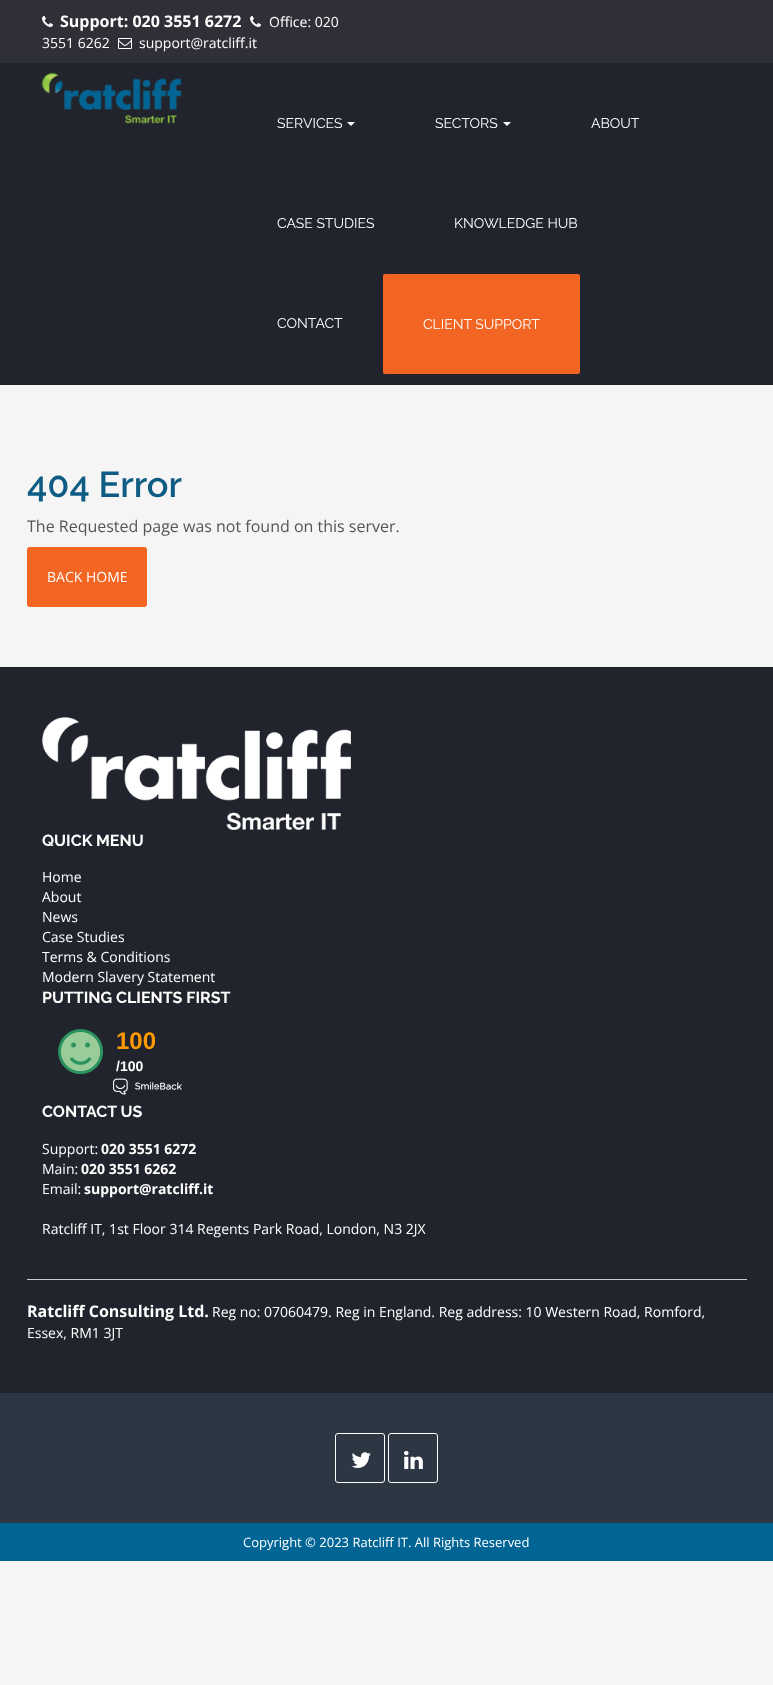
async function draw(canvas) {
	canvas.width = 773;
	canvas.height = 1685;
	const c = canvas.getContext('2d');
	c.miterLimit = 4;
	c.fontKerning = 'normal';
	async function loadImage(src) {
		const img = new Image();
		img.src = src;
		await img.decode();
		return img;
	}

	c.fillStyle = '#f5f5f5';
	c.fillRect(0, 0, 773, 1685);
	c.fillStyle = '#21242c';
	c.fillRect(0, 63, 773, 322);
	c.fillStyle = '#2f2f38';
	c.fillRect(0, 0, 773, 63);
	c.drawImage(await loadImage('img1.png'), 42, 16, 11, 11);
	c.font = 'bold 16px Open Sans';
	c.fillStyle = '#fff';
	c.fillText('Support: 020 3551 6272', 60, 27);
	c.drawImage(await loadImage('img1.png'), 250, 16, 11, 11);
	c.font = '14px Open Sans';
	c.fillText('Office: 020', 269, 27);
	c.fillText('3551 6262', 42, 48);
	c.drawImage(await loadImage('img2.png'), 118, 38, 14, 11);
	c.fillText('support@ratcliff.it', 139, 48);
	c.drawImage(await loadImage('img3.png'), 41, 72, 141, 52);
	c.font = '14px Raleway';
	c.fillText('SERVICES', 277, 128);
	c.beginPath();
	c.moveTo(347, 122);
	c.lineTo(355, 122);
	c.lineTo(351, 126);
	c.closePath();
	c.fill();
	c.fillText('SECTORS', 435, 128);
	c.beginPath();
	c.moveTo(503, 122);
	c.lineTo(511, 122);
	c.lineTo(507, 126);
	c.closePath();
	c.fill();
	for (const [text, x, y] of [
		['ABOUT', 591, 128],
		['CASE STUDIES', 277, 228],
		['KNOWLEDGE HUB', 454, 228],
		['CONTACT', 277, 328],
	]) {
		c.fillText(text, x, y);
	}
	c.fillStyle = '#f26522';
	c.beginPath();
	c.roundRect(382.5, 273.5, 198, 101, 2.5);
	c.fill();
	c.strokeStyle = '#21242c';
	c.stroke();
	c.fillStyle = '#fff';
	c.fillText('CLIENT SUPPORT', 423, 329);
	c.font = '600 36px Raleway';
	c.fillStyle = '#0e5c84';
	c.fillText('404 Error', 27, 497);
	c.font = '16px Open Sans';
	c.fillStyle = '#555';
	c.fillText('The Requested page was not found on this server.', 27, 532);
	c.fillStyle = '#f26522';
	c.beginPath();
	c.roundRect(27, 547, 120, 60, 3);
	c.fill();
	c.font = '14px Open Sans';
	c.fillStyle = '#fff';
	c.fillText('BACK HOME', 47, 582);
	c.fillStyle = '#21242c';
	c.fillRect(0, 667, 773, 726);
	c.drawImage(await loadImage('img4.png'), 42, 717, 309, 113);
	c.font = 'bold 16px Raleway';
	c.fillStyle = '#fff';
	c.fillText('QUICK MENU', 42, 846);
	c.font = '14px Open Sans';
	for (const [text, x, y] of [
		['Home', 42, 882],
		['About', 42, 902],
		['News', 42, 922],
		['Case Studies', 42, 942],
		['Terms & Conditions', 42, 962],
		['Modern Slavery Statement', 42, 982],
	]) {
		c.fillText(text, x, y);
	}
	c.font = 'bold 16px Raleway';
	c.fillText('PUTTING CLIENTS FIRST', 42, 1003);
	c.drawImage(await loadImage('img5.png'), 58, 1029, 46, 46);
	c.font = 'bold 24px Liberation Sans';
	c.fillStyle = '#f90';
	c.fillText('100', 116, 1049);
	c.font = 'bold 14px Liberation Sans';
	c.fillStyle = '#fff';
	c.fillText('/100', 116, 1071);
	c.drawImage(await loadImage('img6.png'), 113, 1078, 69, 17);
	c.font = 'bold 16px Raleway';
	c.fillText('CONTACT US', 42, 1117);
	c.font = '14px Open Sans';
	c.fillText('Support:', 42, 1154);
	c.font = 'bold 14px Open Sans';
	c.fillText('020 3551 6272', 101, 1154);
	c.font = '14px Open Sans';
	c.fillText('Main:', 42, 1174);
	c.font = 'bold 14px Open Sans';
	c.fillText('020 3551 6262', 81, 1174);
	c.font = '14px Open Sans';
	c.fillText('Email:', 42, 1194);
	c.font = 'bold 14px Open Sans';
	c.fillText('support@ratcliff.it', 84, 1194);
	c.font = '14px Open Sans';
	c.fillText('Ratcliff IT, 1st Floor 314 Regents Park Road, London, N3 2JX', 42, 1234);
	c.fillStyle = '#ccc';
	c.fillRect(27, 1279, 720, 1);
	c.font = 'bold 16px Open Sans';
	c.fillStyle = '#fff';
	c.fillText('Ratcliff Consulting Ltd.', 27, 1317);
	c.font = '14px Open Sans';
	c.fillText('Reg no: 07060479. Reg in England. Reg address: 10 Western Road, Romford,', 212, 1317);
	c.fillText('Essex, RM1 3JT', 27, 1338);
	c.fillStyle = '#2d3743';
	c.fillRect(0, 1393, 773, 130);
	c.beginPath();
	c.roundRect(335.5, 1433.5, 49, 49, 2.5);
	c.strokeStyle = '#fff';
	c.stroke();
	c.drawImage(await loadImage('img7.png'), 351, 1452, 20, 16);
	c.beginPath();
	c.roundRect(388.5, 1433.5, 49, 49, 2.5);
	c.stroke();
	c.drawImage(await loadImage('img8.png'), 404, 1451, 19, 18);
	c.fillStyle = '#006595';
	c.fillRect(0, 1523, 773, 38);
	c.font = '13px Open Sans';
	c.fillStyle = '#fff';
	c.fillText('Copyright © 2023 Ratcliff IT. All Rights Reserved', 243, 1547);
}

draw(document.querySelector('canvas'));
